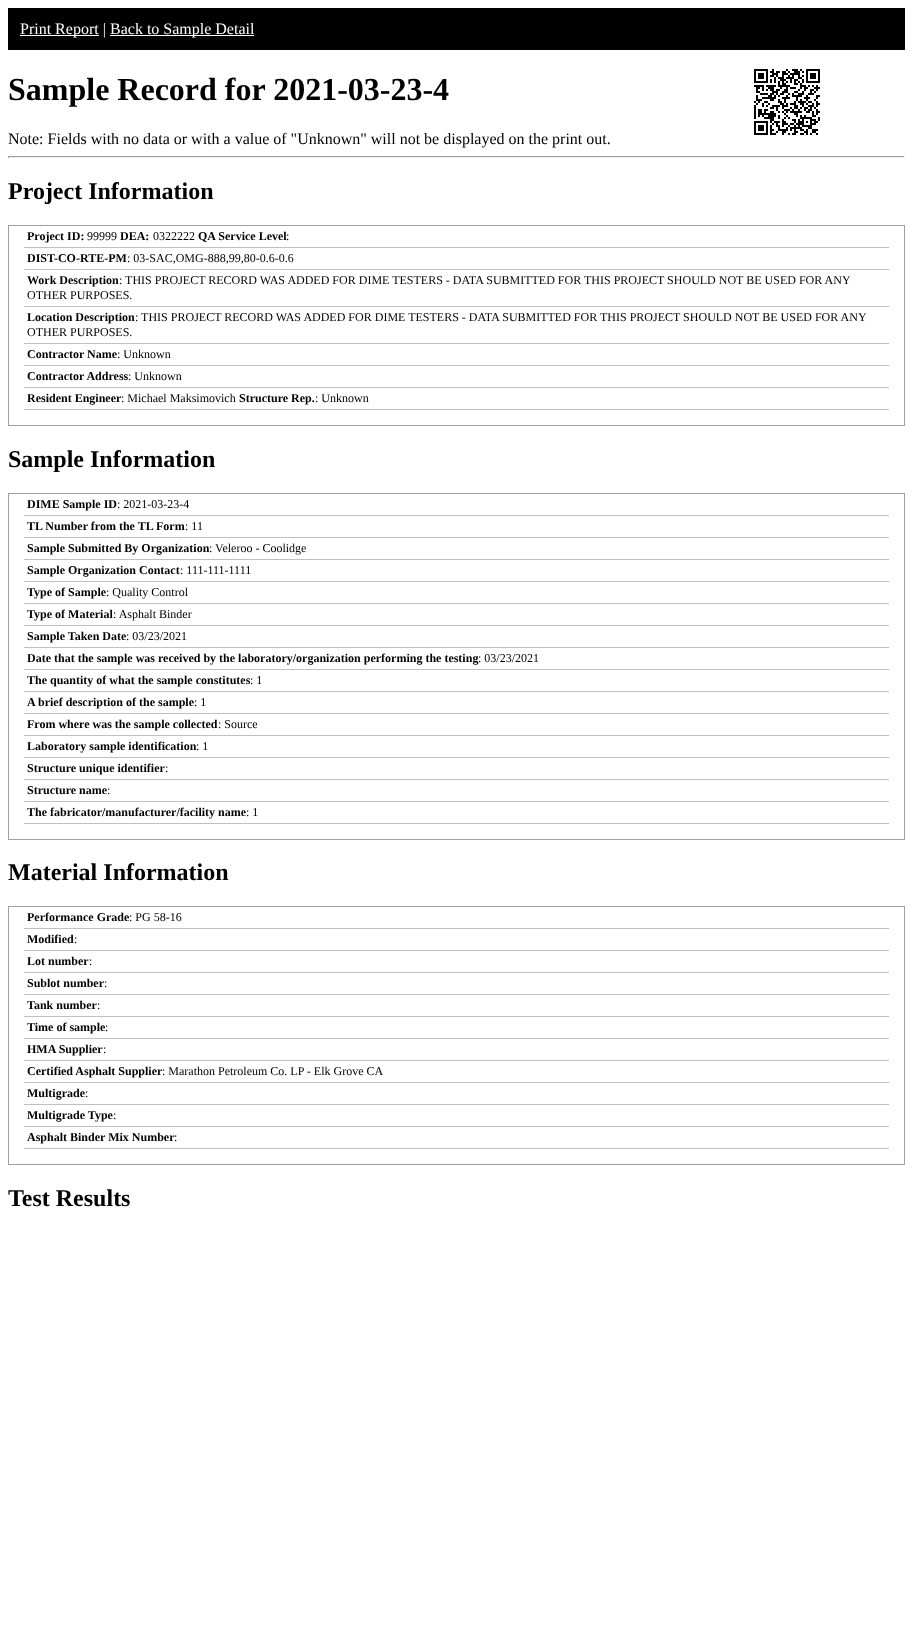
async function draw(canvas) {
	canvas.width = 913;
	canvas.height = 1631;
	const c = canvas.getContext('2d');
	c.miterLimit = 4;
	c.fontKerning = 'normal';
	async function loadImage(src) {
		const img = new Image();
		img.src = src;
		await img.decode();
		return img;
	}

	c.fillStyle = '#fff';
	c.fillRect(0, 0, 913, 1631);
	c.fillStyle = '#000';
	c.fillRect(8, 8, 897, 42);
	c.fillStyle = '#fff';
	c.fillRect(20, 35, 79, 1);
	c.font = '16px Liberation Serif';
	c.fillText('Print Report |', 20, 34);
	c.fillRect(110, 35, 144, 1);
	c.fillText('Back to Sample Detail', 110, 34);
	c.font = 'bold 32px Liberation Serif';
	c.fillStyle = '#000';
	c.fillText('Sample Record for 2021-03-23-4', 8, 100);
	c.drawImage(await loadImage('img1.png'), 754, 69, 66, 66);
	c.font = '16px Liberation Serif';
	c.fillText('Note: Fields with no data or with a value of "Unknown" will not be displayed on the print out.', 8, 144);
	for (const [x, y, w, h, color] of [
		[8, 156, 897, 1, '#9f9f9f'],
		[904, 156, 1, 2, '#eee'],
		[8, 157, 897, 1, '#eee'],
		[8, 156, 1, 2, '#9f9f9f'],
	]) {
		c.fillStyle = color;
		c.fillRect(x, y, w, h);
	}
	c.font = 'bold 24px Liberation Serif';
	c.fillStyle = '#000';
	c.fillText('Project Information', 8, 199);
	c.strokeStyle = '#a0a0a0';
	c.strokeRect(8.5, 225.5, 896, 200);
	c.fillStyle = '#c0c0c0';
	c.fillRect(24, 247, 865, 1);
	c.font = 'bold 12px Liberation Serif';
	c.fillStyle = '#000';
	c.fillText('Project ID:', 27, 240);
	c.font = '12px Liberation Serif';
	c.fillText('99999', 87, 240);
	c.font = 'bold 12px Liberation Serif';
	c.fillText('DEA:', 120, 240);
	c.font = '12px Liberation Serif';
	c.fillText('0322222', 153, 240);
	c.font = 'bold 12px Liberation Serif';
	c.fillText('QA Service Level', 198, 240);
	c.font = '12px Liberation Serif';
	c.fillText(':', 286, 240);
	c.fillStyle = '#c0c0c0';
	c.fillRect(24, 269, 865, 1);
	c.font = 'bold 12px Liberation Serif';
	c.fillStyle = '#000';
	c.fillText('DIST-CO-RTE-PM', 27, 262);
	c.font = '12px Liberation Serif';
	c.fillText(': 03-SAC,OMG-888,99,80-0.6-0.6', 127, 262);
	c.fillStyle = '#c0c0c0';
	c.fillRect(24, 306, 865, 1);
	c.font = 'bold 12px Liberation Serif';
	c.fillStyle = '#000';
	c.fillText('Work Description', 27, 284);
	c.font = '12px Liberation Serif';
	c.fillText(': THIS PROJECT RECORD WAS ADDED FOR DIME TESTERS - DATA SUBMITTED FOR THIS PROJECT SHOULD NOT BE USED FOR ANY', 119, 284);
	c.fillText('OTHER PURPOSES.', 27, 299);
	c.fillStyle = '#c0c0c0';
	c.fillRect(24, 343, 865, 1);
	c.font = 'bold 12px Liberation Serif';
	c.fillStyle = '#000';
	c.fillText('Location Description', 27, 321);
	c.font = '12px Liberation Serif';
	c.fillText(': THIS PROJECT RECORD WAS ADDED FOR DIME TESTERS - DATA SUBMITTED FOR THIS PROJECT SHOULD NOT BE USED FOR ANY', 135, 321);
	c.fillText('OTHER PURPOSES.', 27, 336);
	c.fillStyle = '#c0c0c0';
	c.fillRect(24, 365, 865, 1);
	c.font = 'bold 12px Liberation Serif';
	c.fillStyle = '#000';
	c.fillText('Contractor Name', 27, 358);
	c.font = '12px Liberation Serif';
	c.fillText(': Unknown', 117, 358);
	c.fillStyle = '#c0c0c0';
	c.fillRect(24, 387, 865, 1);
	c.font = 'bold 12px Liberation Serif';
	c.fillStyle = '#000';
	c.fillText('Contractor Address', 27, 380);
	c.font = '12px Liberation Serif';
	c.fillText(': Unknown', 128, 380);
	c.fillStyle = '#c0c0c0';
	c.fillRect(24, 409, 865, 1);
	c.font = 'bold 12px Liberation Serif';
	c.fillStyle = '#000';
	c.fillText('Resident Engineer', 27, 402);
	c.font = '12px Liberation Serif';
	c.fillText(': Michael Maksimovich', 121, 402);
	c.font = 'bold 12px Liberation Serif';
	c.fillText('Structure Rep.', 239, 402);
	c.font = '12px Liberation Serif';
	c.fillText(': Unknown', 315, 402);
	c.font = 'bold 24px Liberation Serif';
	c.fillText('Sample Information', 8, 467);
	c.strokeRect(8.5, 493.5, 896, 346);
	c.fillStyle = '#c0c0c0';
	c.fillRect(24, 515, 865, 1);
	c.font = 'bold 12px Liberation Serif';
	c.fillStyle = '#000';
	c.fillText('DIME Sample ID', 27, 508);
	c.font = '12px Liberation Serif';
	c.fillText(': 2021-03-23-4', 117, 508);
	c.fillStyle = '#c0c0c0';
	c.fillRect(24, 537, 865, 1);
	c.font = 'bold 12px Liberation Serif';
	c.fillStyle = '#000';
	c.fillText('TL Number from the TL Form', 27, 530);
	c.font = '12px Liberation Serif';
	c.fillText(': 11', 185, 530);
	c.fillStyle = '#c0c0c0';
	c.fillRect(24, 559, 865, 1);
	c.font = 'bold 12px Liberation Serif';
	c.fillStyle = '#000';
	c.fillText('Sample Submitted By Organization', 27, 552);
	c.font = '12px Liberation Serif';
	c.fillText(': Veleroo - Coolidge', 209, 552);
	c.fillStyle = '#c0c0c0';
	c.fillRect(24, 581, 865, 1);
	c.font = 'bold 12px Liberation Serif';
	c.fillStyle = '#000';
	c.fillText('Sample Organization Contact', 27, 574);
	c.font = '12px Liberation Serif';
	c.fillText(': 111-111-1111', 180, 574);
	c.fillStyle = '#c0c0c0';
	c.fillRect(24, 603, 865, 1);
	c.font = 'bold 12px Liberation Serif';
	c.fillStyle = '#000';
	c.fillText('Type of Sample', 27, 596);
	c.font = '12px Liberation Serif';
	c.fillText(': Quality Control', 106, 596);
	c.fillStyle = '#c0c0c0';
	c.fillRect(24, 625, 865, 1);
	c.font = 'bold 12px Liberation Serif';
	c.fillStyle = '#000';
	c.fillText('Type of Material', 27, 618);
	c.font = '12px Liberation Serif';
	c.fillText(': Asphalt Binder', 113, 618);
	c.fillStyle = '#c0c0c0';
	c.fillRect(24, 647, 865, 1);
	c.font = 'bold 12px Liberation Serif';
	c.fillStyle = '#000';
	c.fillText('Sample Taken Date', 27, 640);
	c.font = '12px Liberation Serif';
	c.fillText(': 03/23/2021', 126, 640);
	c.fillStyle = '#c0c0c0';
	c.fillRect(24, 669, 865, 1);
	c.font = 'bold 12px Liberation Serif';
	c.fillStyle = '#000';
	c.fillText('Date that the sample was received by the laboratory/organization performing the testing', 27, 662);
	c.font = '12px Liberation Serif';
	c.fillText(': 03/23/2021', 478, 662);
	c.fillStyle = '#c0c0c0';
	c.fillRect(24, 691, 865, 1);
	c.font = 'bold 12px Liberation Serif';
	c.fillStyle = '#000';
	c.fillText('The quantity of what the sample constitutes', 27, 684);
	c.font = '12px Liberation Serif';
	c.fillText(': 1', 250, 684);
	c.fillStyle = '#c0c0c0';
	c.fillRect(24, 713, 865, 1);
	c.font = 'bold 12px Liberation Serif';
	c.fillStyle = '#000';
	c.fillText('A brief description of the sample', 27, 706);
	c.font = '12px Liberation Serif';
	c.fillText(': 1', 194, 706);
	c.fillStyle = '#c0c0c0';
	c.fillRect(24, 735, 865, 1);
	c.font = 'bold 12px Liberation Serif';
	c.fillStyle = '#000';
	c.fillText('From where was the sample collected', 27, 728);
	c.font = '12px Liberation Serif';
	c.fillText(': Source', 218, 728);
	c.fillStyle = '#c0c0c0';
	c.fillRect(24, 757, 865, 1);
	c.font = 'bold 12px Liberation Serif';
	c.fillStyle = '#000';
	c.fillText('Laboratory sample identification', 27, 750);
	c.font = '12px Liberation Serif';
	c.fillText(': 1', 196, 750);
	c.fillStyle = '#c0c0c0';
	c.fillRect(24, 779, 865, 1);
	c.font = 'bold 12px Liberation Serif';
	c.fillStyle = '#000';
	c.fillText('Structure unique identifier', 27, 772);
	c.font = '12px Liberation Serif';
	c.fillText(':', 165, 772);
	c.fillStyle = '#c0c0c0';
	c.fillRect(24, 801, 865, 1);
	c.font = 'bold 12px Liberation Serif';
	c.fillStyle = '#000';
	c.fillText('Structure name', 27, 794);
	c.font = '12px Liberation Serif';
	c.fillText(':', 107, 794);
	c.fillStyle = '#c0c0c0';
	c.fillRect(24, 823, 865, 1);
	c.font = 'bold 12px Liberation Serif';
	c.fillStyle = '#000';
	c.fillText('The fabricator/manufacturer/facility name', 27, 816);
	c.font = '12px Liberation Serif';
	c.fillText(': 1', 246, 816);
	c.font = 'bold 24px Liberation Serif';
	c.fillText('Material Information', 8, 880);
	c.strokeRect(8.5, 906.5, 896, 258);
	c.fillStyle = '#c0c0c0';
	c.fillRect(24, 928, 865, 1);
	c.font = 'bold 12px Liberation Serif';
	c.fillStyle = '#000';
	c.fillText('Performance Grade', 27, 921);
	c.font = '12px Liberation Serif';
	c.fillText(': PG 58-16', 129, 921);
	c.fillStyle = '#c0c0c0';
	c.fillRect(24, 950, 865, 1);
	c.font = 'bold 12px Liberation Serif';
	c.fillStyle = '#000';
	c.fillText('Modified', 27, 943);
	c.font = '12px Liberation Serif';
	c.fillText(':', 74, 943);
	c.fillStyle = '#c0c0c0';
	c.fillRect(24, 972, 865, 1);
	c.font = 'bold 12px Liberation Serif';
	c.fillStyle = '#000';
	c.fillText('Lot number', 27, 965);
	c.font = '12px Liberation Serif';
	c.fillText(':', 89, 965);
	c.fillStyle = '#c0c0c0';
	c.fillRect(24, 994, 865, 1);
	c.font = 'bold 12px Liberation Serif';
	c.fillStyle = '#000';
	c.fillText('Sublot number', 27, 987);
	c.font = '12px Liberation Serif';
	c.fillText(':', 104, 987);
	c.fillStyle = '#c0c0c0';
	c.fillRect(24, 1016, 865, 1);
	c.font = 'bold 12px Liberation Serif';
	c.fillStyle = '#000';
	c.fillText('Tank number', 27, 1009);
	c.font = '12px Liberation Serif';
	c.fillText(':', 97, 1009);
	c.fillStyle = '#c0c0c0';
	c.fillRect(24, 1038, 865, 1);
	c.font = 'bold 12px Liberation Serif';
	c.fillStyle = '#000';
	c.fillText('Time of sample', 27, 1031);
	c.font = '12px Liberation Serif';
	c.fillText(':', 105, 1031);
	c.fillStyle = '#c0c0c0';
	c.fillRect(24, 1060, 865, 1);
	c.font = 'bold 12px Liberation Serif';
	c.fillStyle = '#000';
	c.fillText('HMA Supplier', 27, 1053);
	c.font = '12px Liberation Serif';
	c.fillText(':', 103, 1053);
	c.fillStyle = '#c0c0c0';
	c.fillRect(24, 1082, 865, 1);
	c.font = 'bold 12px Liberation Serif';
	c.fillStyle = '#000';
	c.fillText('Certified Asphalt Supplier', 27, 1075);
	c.font = '12px Liberation Serif';
	c.fillText(': Marathon Petroleum Co. LP - Elk Grove CA', 162, 1075);
	c.fillStyle = '#c0c0c0';
	c.fillRect(24, 1104, 865, 1);
	c.font = 'bold 12px Liberation Serif';
	c.fillStyle = '#000';
	c.fillText('Multigrade', 27, 1097);
	c.font = '12px Liberation Serif';
	c.fillText(':', 85, 1097);
	c.fillStyle = '#c0c0c0';
	c.fillRect(24, 1126, 865, 1);
	c.font = 'bold 12px Liberation Serif';
	c.fillStyle = '#000';
	c.fillText('Multigrade Type', 27, 1119);
	c.font = '12px Liberation Serif';
	c.fillText(':', 113, 1119);
	c.fillStyle = '#c0c0c0';
	c.fillRect(24, 1148, 865, 1);
	c.font = 'bold 12px Liberation Serif';
	c.fillStyle = '#000';
	c.fillText('Asphalt Binder Mix Number', 27, 1141);
	c.font = '12px Liberation Serif';
	c.fillText(':', 174, 1141);
	c.font = 'bold 24px Liberation Serif';
	c.fillText('Test Results', 8, 1206);
}

draw(document.querySelector('canvas'));
